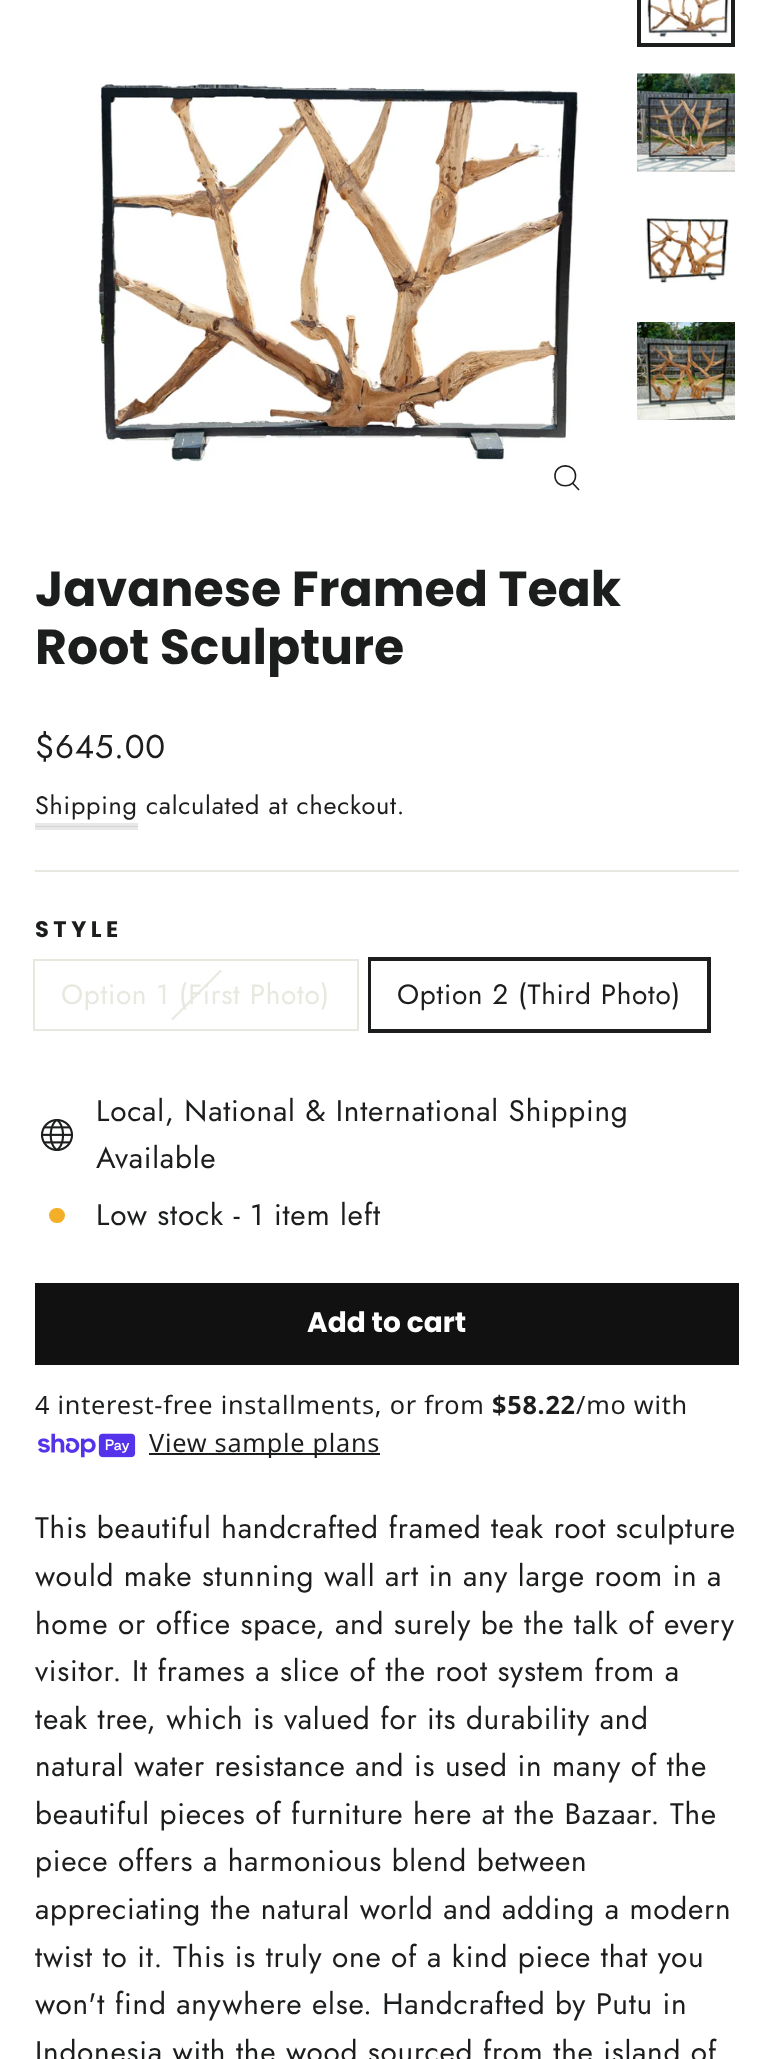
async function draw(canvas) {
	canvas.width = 772;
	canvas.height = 2059;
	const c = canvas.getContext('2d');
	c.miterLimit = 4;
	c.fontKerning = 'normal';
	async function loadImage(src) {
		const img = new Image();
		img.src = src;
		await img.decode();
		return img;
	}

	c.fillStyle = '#fff';
	c.fillRect(0, 0, 772, 2059);
	c.fillStyle = '#e8e8e8';
	c.fillRect(35, 827, 103, 3);
	c.drawImage(await loadImage('img1.png'), 97, 84, 482, 378);
	c.beginPath();
	c.moveTo(575.5, 476);
	c.bezierCurveTo(575.5, 489, 555, 489, 555, 476);
	c.bezierCurveTo(555, 462.5, 575.5, 462.5, 575.5, 476);
	c.closePath();
	c.moveTo(579, 490);
	c.lineTo(572.5, 483);
	c.strokeStyle = '#1c1d1d';
	c.lineWidth = 1.6;
	c.stroke();
	c.drawImage(await loadImage('img2.png'), 645, 0, 85, 39);
	c.lineWidth = 4;
	c.strokeRect(639, -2, 94, 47);
	c.drawImage(await loadImage('img3.png'), 637, 73, 98, 99);
	c.drawImage(await loadImage('img4.png'), 645, 217, 84, 67);
	c.drawImage(await loadImage('img5.png'), 637, 322, 98, 98);
	c.font = 'bold 49px Poppins';
	c.fillStyle = '#1c1d1d';
	c.fillText('Javanese Framed Teak', 35, 606);
	c.fillText('Root Sculpture', 35, 664);
	c.letterSpacing = '0.75px';
	c.font = '33px Jost';
	c.fillText('$645.00', 35, 758);
	c.font = '25.25px Jost';
	c.fillText('Shipping', 35, 814);
	c.fillStyle = '#e8e8e8';
	c.fillRect(35, 823, 103, 3);
	c.fillStyle = '#d4d4d4';
	c.fillRect(35, 826, 103, 1);
	c.fillStyle = '#1c1d1d';
	c.fillText('calculated at checkout.', 146, 814);
	c.fillStyle = '#e8e8e1';
	c.fillRect(35, 870, 704, 2);
	c.letterSpacing = '4.5px';
	c.font = 'bold 22.5px Poppins';
	c.fillStyle = '#1c1d1d';
	c.fillText('STYLE', 35, 937);
	c.strokeStyle = '#e8e8e1';
	c.lineWidth = 2;
	c.strokeRect(34, 960, 324, 70);
	c.fillStyle = '#e8e8e1';
	c.beginPath();
	c.moveTo(220, 970);
	c.lineTo(222, 971);
	c.lineTo(173, 1020);
	c.lineTo(171, 1019);
	c.closePath();
	c.fill();
	c.letterSpacing = '0.7px';
	c.font = '28px Jost';
	c.fillText('Option 1 (First Photo)', 61, 1004);
	c.strokeStyle = '#1c1d1d';
	c.lineWidth = 4;
	c.strokeRect(370, 959, 339, 72);
	c.fillStyle = '#fff';
	c.fillRect(371, 961, 1, 68);
	c.fillStyle = '#1c1d1d';
	c.fillText('Option 2 (Third Photo)', 397, 1004);
	c.drawImage(await loadImage('img6.png'), 40, 1118, 34, 33);
	c.letterSpacing = '0.75px';
	c.font = '29.75px Jost';
	c.fillText('Local, National & International Shipping', 96, 1121);
	c.fillText('Available', 96, 1168);
	c.fillStyle = '#f4af29';
	c.beginPath();
	c.roundRect(49, 1208, 16, 15, 7.5);
	c.fill();
	c.fillStyle = '#1c1d1d';
	c.fillText('Low stock - 1 item left', 96, 1225);
	c.fillStyle = '#111';
	c.fillRect(35, 1283, 704, 82);
	c.letterSpacing = '0px';
	c.font = 'bold 28px Poppins';
	c.fillStyle = '#fff';
	c.fillText('Add to cart', 307, 1332);
	c.letterSpacing = '0.75px';
	c.font = '25.25px Noto Sans';
	c.fillStyle = '#1c1d1d';
	c.fillText('4 interest-free installments, or from', 35, 1414);
	c.font = 'bold 25.25px Noto Sans';
	c.fillText('$58.22', 492, 1414);
	c.font = '25.25px Noto Sans';
	c.fillText('/mo with', 576, 1414);
	c.drawImage(await loadImage('img7.png'), 38, 1433, 98, 25);
	c.fillRect(149, 1453, 231, 2);
	c.fillText('View sample plans', 149, 1452);
	c.font = '29.75px Jost';
	for (const [text, x, y] of [
		['This beautiful handcrafted framed teak root sculpture', 35, 1538],
		['would make stunning wall art in any large room in a', 35, 1586],
		['home or office space, and surely be the talk of every', 35, 1634],
		['visitor. It frames a slice of the root system from a', 35, 1681],
		['teak tree, which is valued for its durability and', 35, 1729],
		['natural water resistance and is used in many of the', 35, 1776],
		['beautiful pieces of furniture here at the Bazaar. The', 35, 1824],
		['piece offers a harmonious blend between', 35, 1871],
		['appreciating the natural world and adding a modern', 35, 1919],
		['twist to it. This is truly one of a kind piece that you', 35, 1967],
		['won\'t find anywhere else. Handcrafted by Putu in', 35, 2014],
		['Indonesia with the wood sourced from the island of', 35, 2062],
	]) {
		c.fillText(text, x, y);
	}
}

draw(document.querySelector('canvas'));
